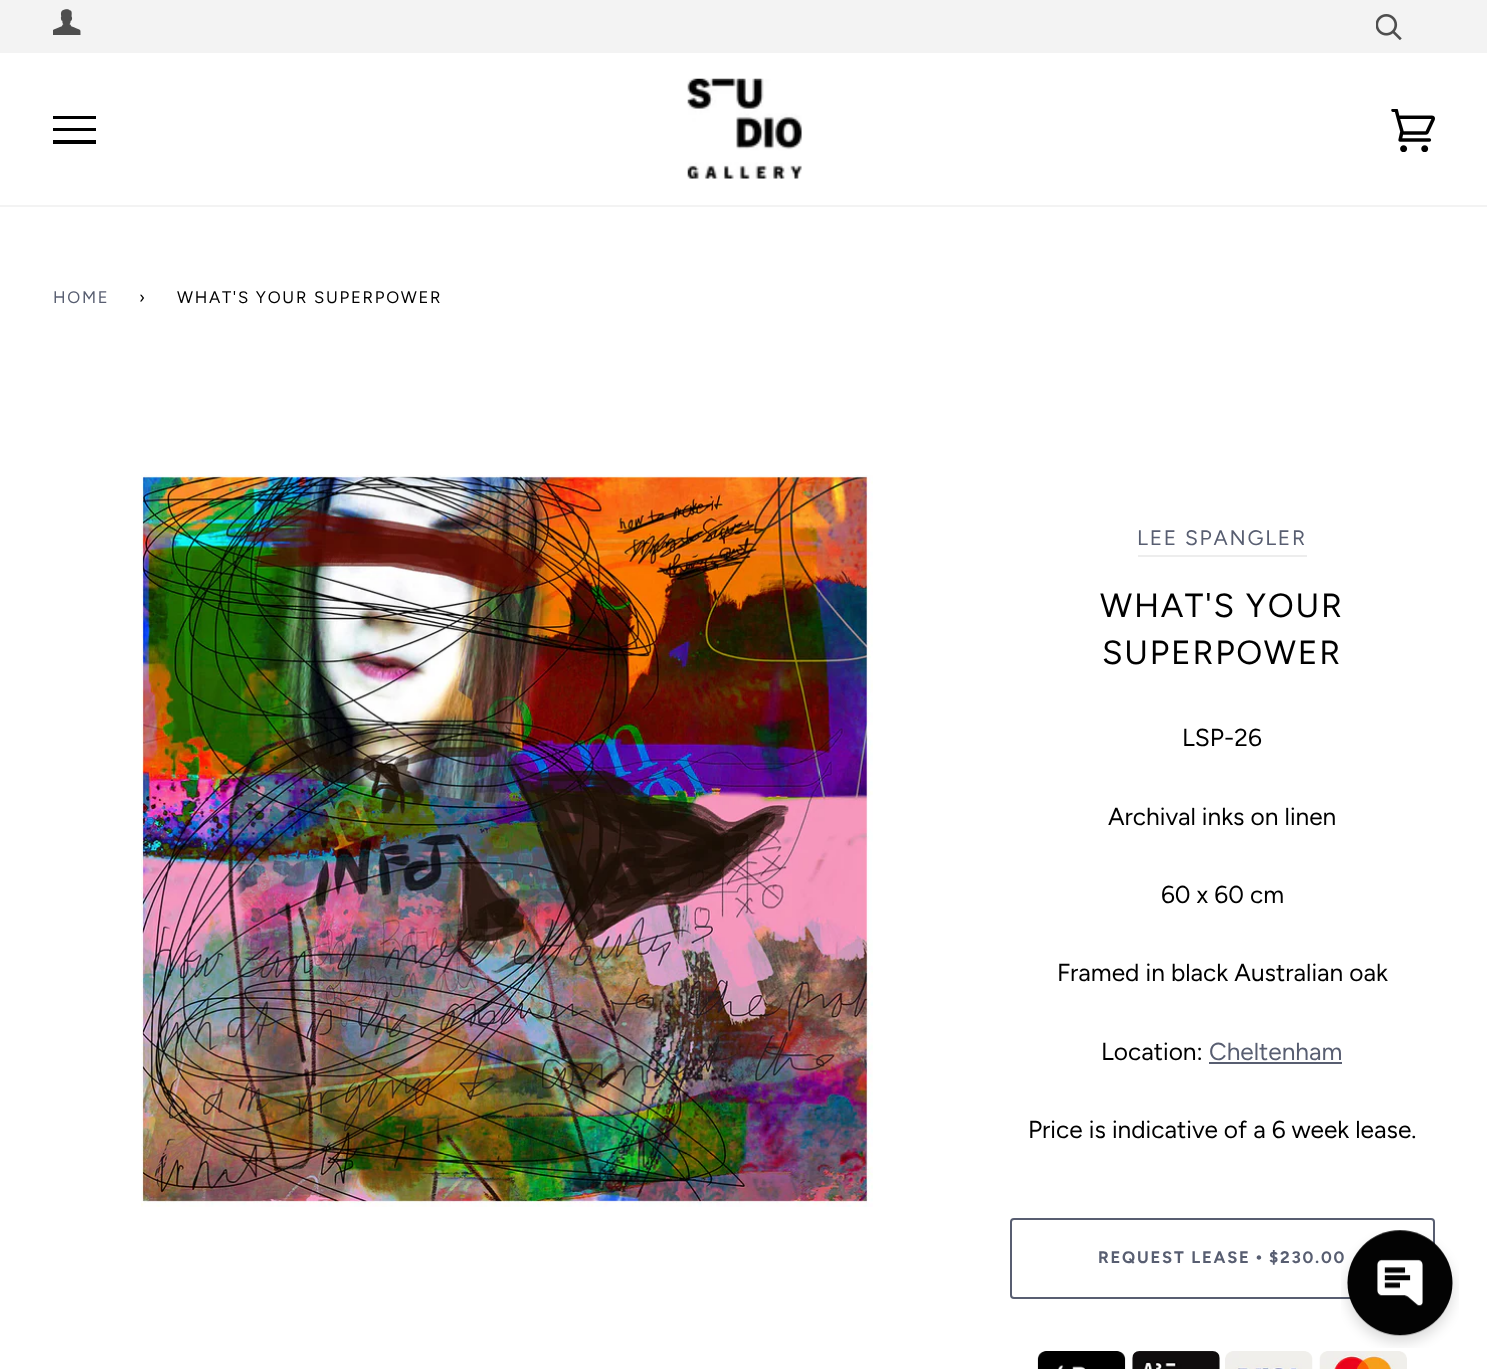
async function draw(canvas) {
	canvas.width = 1487;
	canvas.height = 1369;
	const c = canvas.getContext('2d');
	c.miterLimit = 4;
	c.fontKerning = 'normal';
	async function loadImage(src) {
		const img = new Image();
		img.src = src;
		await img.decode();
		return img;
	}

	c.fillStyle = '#fff';
	c.fillRect(0, 0, 1487, 1369);
	c.fillStyle = '#f3f3f3';
	c.fillRect(0, 0, 1487, 53);
	c.drawImage(await loadImage('img1.png'), 53, 9, 28, 26);
	c.drawImage(await loadImage('img2.png'), 1376, 14, 26, 26);
	c.fillRect(0, 205, 1487, 2);
	c.save();
	c.beginPath();
	c.rect(53, 109, 43, 43);
	c.clip();
	c.fillStyle = '#000';
	c.beginPath();
	c.moveTo(52, 116);
	c.lineTo(96, 116);
	c.lineTo(96, 119);
	c.lineTo(52, 119);
	c.closePath();
	c.moveTo(52, 128);
	c.lineTo(96, 128);
	c.lineTo(96, 131);
	c.lineTo(52, 131);
	c.closePath();
	c.moveTo(52, 140);
	c.lineTo(96, 140);
	c.lineTo(96, 144);
	c.lineTo(52, 144);
	c.closePath();
	c.fill();
	c.restore();
	c.drawImage(await loadImage('img3.png'), 687, 78, 115, 101);
	c.drawImage(await loadImage('img4.png'), 1391, 109, 44, 43);
	c.letterSpacing = '1.75px';
	c.font = '16.7px Figtree';
	c.fillStyle = '#585e71';
	c.fillText('HOME', 53, 303);
	c.fillStyle = '#000';
	c.fillText('›', 139, 303);
	c.fillText('WHAT\'S YOUR SUPERPOWER', 177, 303);
	c.drawImage(await loadImage('img5.png'), 141, 475, 732, 732);
	c.font = '21px Figtree';
	c.fillStyle = '#585e71';
	c.fillText('LEE SPANGLER', 1137, 545);
	c.fillStyle = '#ededed';
	c.fillRect(1138, 555, 169, 2);
	c.font = '33.5px Figtree';
	c.fillStyle = '#000';
	c.fillText('WHAT\'S YOUR', 1100, 617);
	c.fillText('SUPERPOWER', 1102, 664);
	c.letterSpacing = '0px';
	c.font = '24.5px Figtree';
	for (const [text, x, y] of [
		['LSP-26', 1182, 746],
		['Archival inks on linen', 1108, 825],
		['60 x 60 cm', 1161, 903],
		['Framed in black Australian oak', 1057, 981],
		['Location:', 1101, 1060],
	]) {
		c.fillText(text, x, y);
	}
	c.fillStyle = '#585e71';
	c.fillText('Cheltenham', 1209, 1060);
	c.fillRect(1209, 1062, 133, 2);
	c.fillStyle = '#000';
	c.fillText('Price is indicative of a 6 week lease.', 1028, 1138);
	c.beginPath();
	c.roundRect(1011, 1219, 423, 79, 3);
	c.strokeStyle = '#585e71';
	c.lineWidth = 2;
	c.stroke();
	c.letterSpacing = '1.75px';
	c.font = 'bold 16.7px Figtree';
	c.fillStyle = '#585e71';
	c.fillText('REQUEST LEASE', 1098, 1263);
	c.font = 'bold 16.7px Liberation Serif';
	c.fillText('•', 1256, 1263);
	c.font = 'bold 16.7px Figtree';
	c.fillText('$230.00', 1269, 1263);
	c.drawImage(await loadImage('img6.png'), 1037, 1351, 89, 18);
	c.drawImage(await loadImage('img7.png'), 1132, 1351, 88, 18);
	c.drawImage(await loadImage('img8.png'), 1225, 1351, 88, 18);
	c.drawImage(await loadImage('img9.png'), 1319, 1351, 88, 18);
	c.drawImage(await loadImage('img10.png'), 1341, 1230, 118, 118);
}

draw(document.querySelector('canvas'));
